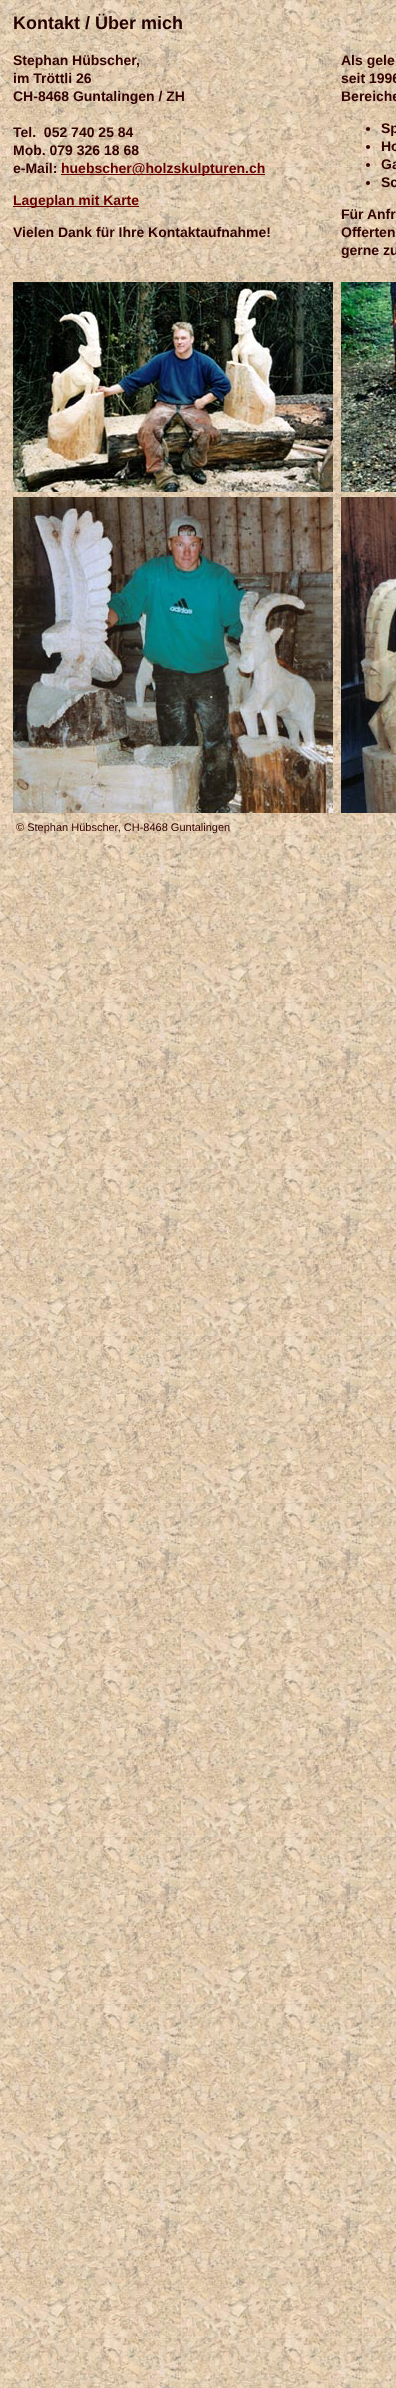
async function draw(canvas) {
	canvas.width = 396;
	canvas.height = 2388;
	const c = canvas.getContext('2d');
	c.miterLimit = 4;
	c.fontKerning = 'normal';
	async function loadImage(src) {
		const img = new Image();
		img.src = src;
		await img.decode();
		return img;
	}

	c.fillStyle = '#fff';
	c.fillRect(0, 0, 396, 2388);
	c.drawImage(await loadImage('img1.png'), 0, 0, 396, 2388);
	c.font = 'bold 18px Liberation Sans';
	c.fillStyle = '#260000';
	c.fillText('Kontakt / Über mich', 13, 29);
	c.font = 'bold 14px Liberation Sans';
	c.fillStyle = '#300';
	for (const [text, x, y] of [
		['Stephan Hübscher,', 13, 65],
		['im Tröttli 26', 13, 83],
		['CH-8468 Guntalingen / ZH', 13, 101],
		['Tel.  052 740 25 84', 13, 137],
		['Mob. 079 326 18 68', 13, 155],
		['e-Mail:', 13, 173],
	]) {
		c.fillText(text, x, y);
	}
	c.fillStyle = '#600';
	c.fillRect(61, 174, 204, 1);
	c.fillText('huebscher@holzskulpturen.ch', 61, 173);
	c.fillRect(13, 206, 126, 1);
	c.fillText('Lageplan mit Karte', 13, 205);
	c.fillStyle = '#300';
	for (const [text, x, y] of [
		['Vielen Dank für Ihre Kontaktaufnahme!', 13, 237],
		['Als gele', 341, 65],
		['seit 1996', 341, 83],
		['Bereiche', 341, 101],
	]) {
		c.fillText(text, x, y);
	}
	c.beginPath();
	c.arc(368, 129, 2, 0, 2 * Math.PI);
	c.fill();
	c.fillText('Sp', 381, 133);
	c.beginPath();
	c.arc(368, 147, 2, 0, 2 * Math.PI);
	c.fill();
	c.fillText('Ho', 381, 151);
	c.beginPath();
	c.arc(368, 165, 2, 0, 2 * Math.PI);
	c.fill();
	c.fillText('Ga', 381, 169);
	c.beginPath();
	c.arc(368, 183, 2, 0, 2 * Math.PI);
	c.fill();
	for (const [text, x, y] of [
		['Sc', 381, 187],
		['Für Anfr', 341, 219],
		['Offerten', 341, 237],
		['gerne zu', 341, 255],
	]) {
		c.fillText(text, x, y);
	}
	c.drawImage(await loadImage('img2.png'), 13, 282, 320, 210);
	c.drawImage(await loadImage('img3.png'), 341, 282, 55, 210);
	c.drawImage(await loadImage('img4.png'), 13, 497, 320, 316);
	c.drawImage(await loadImage('img5.png'), 341, 497, 55, 316);
	c.font = '11px Liberation Sans';
	c.fillText('© Stephan Hübscher, CH-8468 Guntalingen', 16, 831);
}

draw(document.querySelector('canvas'));
